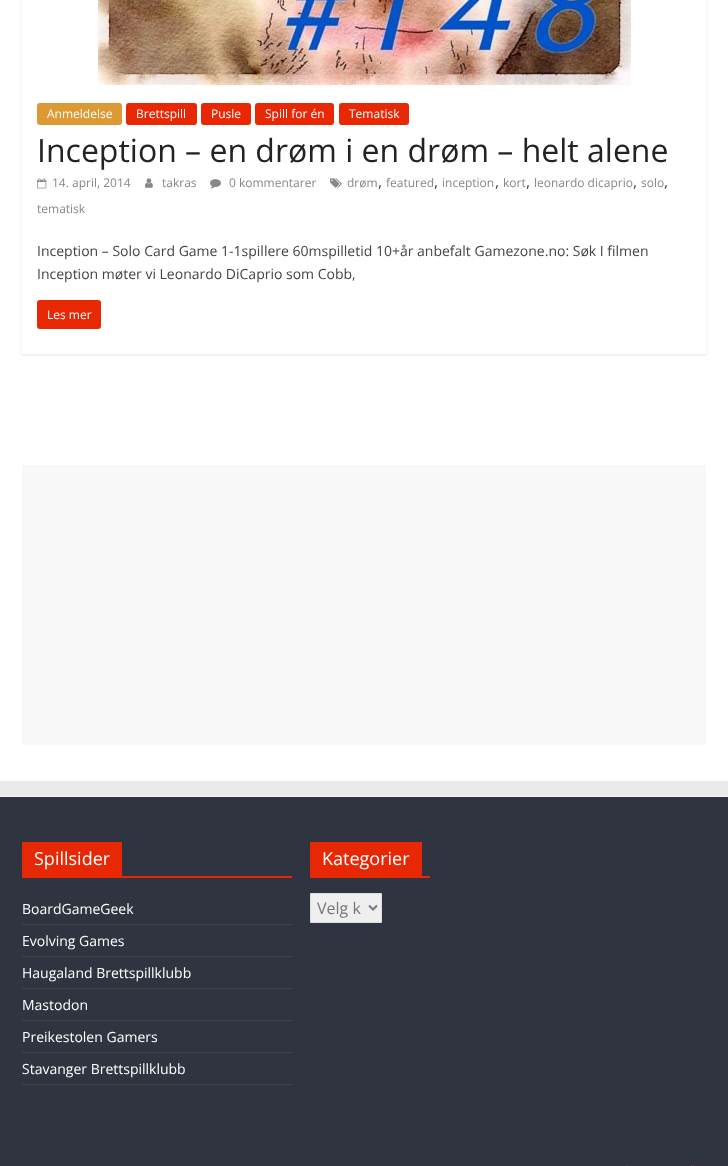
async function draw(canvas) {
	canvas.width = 728;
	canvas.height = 1166;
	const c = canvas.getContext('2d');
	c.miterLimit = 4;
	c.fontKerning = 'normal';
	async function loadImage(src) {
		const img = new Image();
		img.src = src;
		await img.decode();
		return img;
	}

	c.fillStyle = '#eaeaea';
	c.fillRect(0, 0, 728, 1166);
	c.fillStyle = '#fff';
	c.fillRect(0, 0, 728, 781);
	c.save();
	c.beginPath();
	c.moveTo(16, 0);
	c.lineTo(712, 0);
	c.lineTo(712, 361);
	c.lineTo(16, 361);
	c.closePath();
	c.moveTo(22, -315);
	c.lineTo(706, -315);
	c.lineTo(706, 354);
	c.lineTo(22, 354);
	c.closePath();
	c.clip('evenodd');
	c.fillStyle = '#0000001a';
	c.filter = 'blur(1.5px)';
	c.beginPath();
	c.rect(22, -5, 684, 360);
	c.fill();
	c.filter = 'none';
	c.restore();
	c.drawImage(await loadImage('img1.png'), 98, 0, 533, 85);
	c.fillStyle = '#d93';
	c.beginPath();
	c.roundRect(37, 103, 85, 22, 3);
	c.fill();
	c.font = '12px Open Sans';
	c.fillStyle = '#fff';
	c.fillText('Anmeldelse', 47, 118);
	c.fillStyle = '#e82805';
	c.beginPath();
	c.roundRect(126, 103, 71, 22, 3);
	c.fill();
	c.fillStyle = '#fff';
	c.fillText('Brettspill', 136, 118);
	c.fillStyle = '#e82805';
	c.beginPath();
	c.roundRect(201, 103, 50, 22, 3);
	c.fill();
	c.fillStyle = '#fff';
	c.fillText('Pusle', 211, 118);
	c.fillStyle = '#e82805';
	c.beginPath();
	c.roundRect(255, 103, 79, 22, 3);
	c.fill();
	c.fillStyle = '#fff';
	c.fillText('Spill for én', 265, 118);
	c.fillStyle = '#e82805';
	c.beginPath();
	c.roundRect(339, 103, 70, 22, 3);
	c.fill();
	c.fillStyle = '#fff';
	c.fillText('Tematisk', 349, 118);
	c.font = '32px Open Sans';
	c.fillStyle = '#232323';
	c.fillText('Inception – en drøm i en drøm – helt alene', 37, 162);
	c.drawImage(await loadImage('img2.png'), 330, 178, 12, 10);
	c.font = '12px Open Sans';
	c.fillStyle = '#888';
	c.fillText('drøm', 347, 187);
	c.font = '16px Open Sans';
	c.fillStyle = '#444';
	c.fillText(',', 378, 187);
	c.font = '12px Open Sans';
	c.fillStyle = '#888';
	c.fillText('featured', 386, 187);
	c.font = '16px Open Sans';
	c.fillStyle = '#444';
	c.fillText(',', 434, 187);
	c.font = '12px Open Sans';
	c.fillStyle = '#888';
	c.fillText('inception', 442, 187);
	c.font = '16px Open Sans';
	c.fillStyle = '#444';
	c.fillText(',', 495, 187);
	c.font = '12px Open Sans';
	c.fillStyle = '#888';
	c.fillText('kort', 503, 187);
	c.font = '16px Open Sans';
	c.fillStyle = '#444';
	c.fillText(',', 526, 187);
	c.font = '12px Open Sans';
	c.fillStyle = '#888';
	c.fillText('leonardo dicaprio', 534, 187);
	c.font = '16px Open Sans';
	c.fillStyle = '#444';
	c.fillText(',', 633, 187);
	c.font = '12px Open Sans';
	c.fillStyle = '#888';
	c.fillText('solo', 641, 187);
	c.font = '16px Open Sans';
	c.fillStyle = '#444';
	c.fillText(',', 664, 187);
	c.font = '12px Open Sans';
	c.fillStyle = '#888';
	c.fillText('tematisk', 37, 213);
	c.drawImage(await loadImage('img3.png'), 37, 178, 10, 11);
	c.fillText('14. april, 2014', 52, 187);
	c.drawImage(await loadImage('img4.png'), 145, 178, 8, 10);
	c.fillText('takras', 162, 187);
	c.drawImage(await loadImage('img5.png'), 210, 179, 11, 10);
	c.fillText('0 kommentarer', 229, 187);
	c.font = '14px Open Sans';
	c.fillStyle = '#444';
	c.fillText('Inception – Solo Card Game 1-1spillere 60mspilletid 10+år anbefalt Gamezone.no: Søk I filmen', 37, 256);
	c.fillText('Inception møter vi Leonardo DiCaprio som Cobb,', 37, 279);
	c.fillStyle = '#e82805';
	c.beginPath();
	c.roundRect(37, 300, 64, 29, 3);
	c.fill();
	c.font = '12px Open Sans';
	c.fillStyle = '#fff';
	c.fillText('Les mer', 47, 319);
	for (const [x, y, w, h, color] of [
		[22, 465, 684, 280, '#f8f8f8'],
		[0, 797, 728, 369, '#303440'],
		[0, 796, 728, 1, '#f2f2f2'],
		[22, 876, 270, 2, '#e82805'],
		[22, 842, 100, 34, '#e82805'],
	]) {
		c.fillStyle = color;
		c.fillRect(x, y, w, h);
	}
	c.font = '18px Open Sans';
	c.fillStyle = '#fff';
	c.fillText('Spillsider', 34, 865);
	c.fillStyle = '#444';
	c.fillRect(22, 924, 270, 1);
	c.font = '14px Open Sans';
	c.fillStyle = '#fff';
	c.fillText('BoardGameGeek', 22, 914);
	c.fillStyle = '#444';
	c.fillRect(22, 956, 270, 1);
	c.fillStyle = '#fff';
	c.fillText('Evolving Games', 22, 946);
	c.fillStyle = '#444';
	c.fillRect(22, 988, 270, 1);
	c.fillStyle = '#fff';
	c.fillText('Haugaland Brettspillklubb', 22, 978);
	c.fillStyle = '#444';
	c.fillRect(22, 1020, 270, 1);
	c.fillStyle = '#fff';
	c.fillText('Mastodon', 22, 1010);
	c.fillStyle = '#444';
	c.fillRect(22, 1052, 270, 1);
	c.fillStyle = '#fff';
	c.fillText('Preikestolen Gamers', 22, 1042);
	c.fillStyle = '#444';
	c.fillRect(22, 1084, 270, 1);
	c.fillStyle = '#fff';
	c.fillText('Stavanger Brettspillklubb', 22, 1074);
	c.fillStyle = '#e82805';
	c.fillRect(310, 876, 120, 2);
	c.fillRect(310, 842, 112, 34);
	c.font = '18px Open Sans';
	c.fillStyle = '#fff';
	c.fillText('Kategorier', 322, 865);
	c.fillStyle = '#efefef';
	c.beginPath();
	c.rect(310.5, 893.5, 71, 29);
	c.fill();
	c.strokeStyle = '#ddd';
	c.stroke();
	c.beginPath();
	c.moveTo(369, 905.5);
	c.lineTo(373, 909.5);
	c.lineTo(377, 905.5);
	c.strokeStyle = '#777';
	c.lineWidth = 2;
	c.stroke();
	c.font = '16px Open Sans';
	c.fillStyle = '#777';
	c.fillText('Velg k', 317, 914);
	c.drawImage(await loadImage('img6.png'), 624, 1165, 5, 1);
	c.drawImage(await loadImage('img7.png'), 690, 1165, 5, 1);
}

draw(document.querySelector('canvas'));
